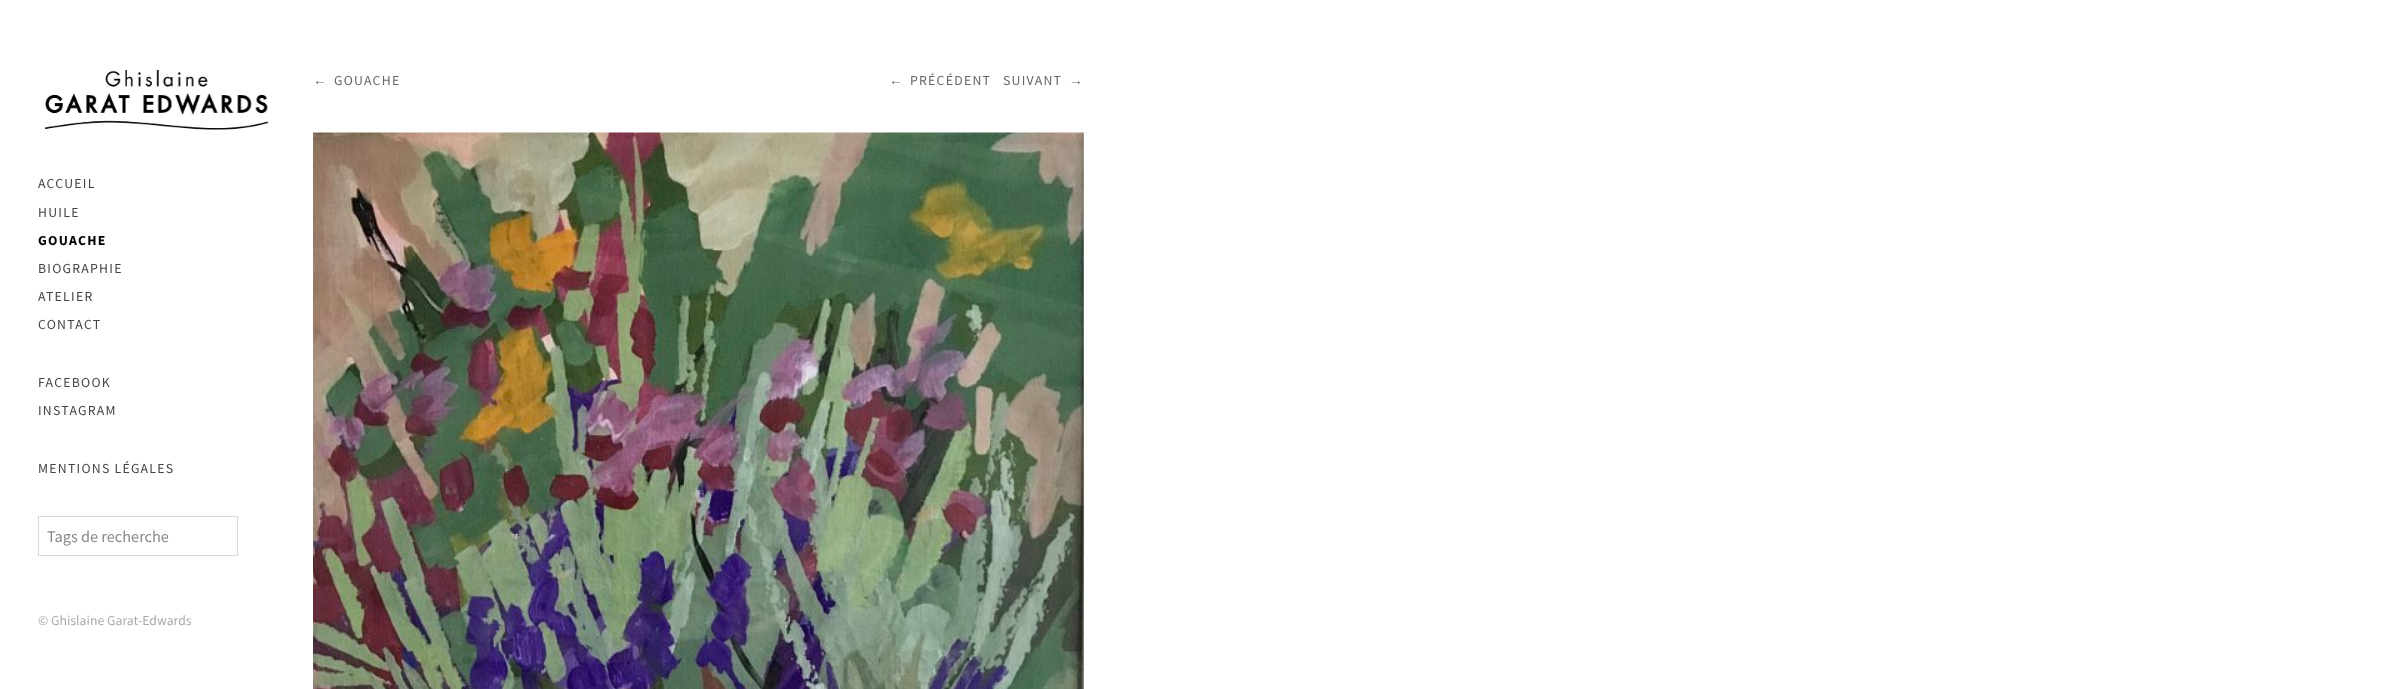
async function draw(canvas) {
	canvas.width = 2387;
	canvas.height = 689;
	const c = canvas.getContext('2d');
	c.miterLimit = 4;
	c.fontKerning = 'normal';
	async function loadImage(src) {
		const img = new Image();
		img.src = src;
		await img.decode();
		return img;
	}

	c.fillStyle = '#fff';
	c.fillRect(0, 0, 2387, 689);
	c.letterSpacing = '1.25px';
	c.font = '13.75px Liberation Sans';
	c.fillStyle = '#666';
	c.fillText('←', 313, 85);
	c.font = '13.75px Source Sans Pro';
	c.fillText('GOUACHE', 334, 85);
	c.font = '13.75px Liberation Sans';
	c.fillText('←', 889, 85);
	c.font = '13.75px Source Sans Pro';
	c.fillText('PRÉCÉDENT', 910, 85);
	c.fillText('SUIVANT', 1003, 85);
	c.font = '13.75px Liberation Sans';
	c.fillText('→', 1069, 85);
	c.drawImage(await loadImage('img1.png'), 313, 132, 771, 557);
	c.drawImage(await loadImage('img2.png'), 45, 70, 224, 60);
	c.font = '13.75px Source Sans Pro';
	c.fillStyle = '#444';
	c.fillText('ACCUEIL', 38, 188);
	c.fillText('HUILE', 38, 217);
	c.font = 'bold 13.75px Source Sans Pro';
	c.fillStyle = '#000';
	c.fillText('GOUACHE', 38, 245);
	c.font = '13.75px Source Sans Pro';
	c.fillStyle = '#444';
	for (const [text, x, y] of [
		['BIOGRAPHIE', 38, 273],
		['ATELIER', 38, 301],
		['CONTACT', 38, 329],
		['FACEBOOK', 38, 387],
		['INSTAGRAM', 38, 415],
		['MENTIONS LÉGALES', 38, 473],
	]) {
		c.fillText(text, x, y);
	}
	c.strokeStyle = '#d9d9d9';
	c.strokeRect(38.5, 516.5, 199, 39);
	c.letterSpacing = '0px';
	c.font = '16.25px Source Sans Pro';
	c.fillStyle = '#888';
	c.fillText('Tags de recherche', 47, 542);
	c.font = '13.75px Source Sans Pro';
	c.fillStyle = '#aaa';
	c.fillText('© Ghislaine Garat-Edwards', 38, 625);
}

draw(document.querySelector('canvas'));
